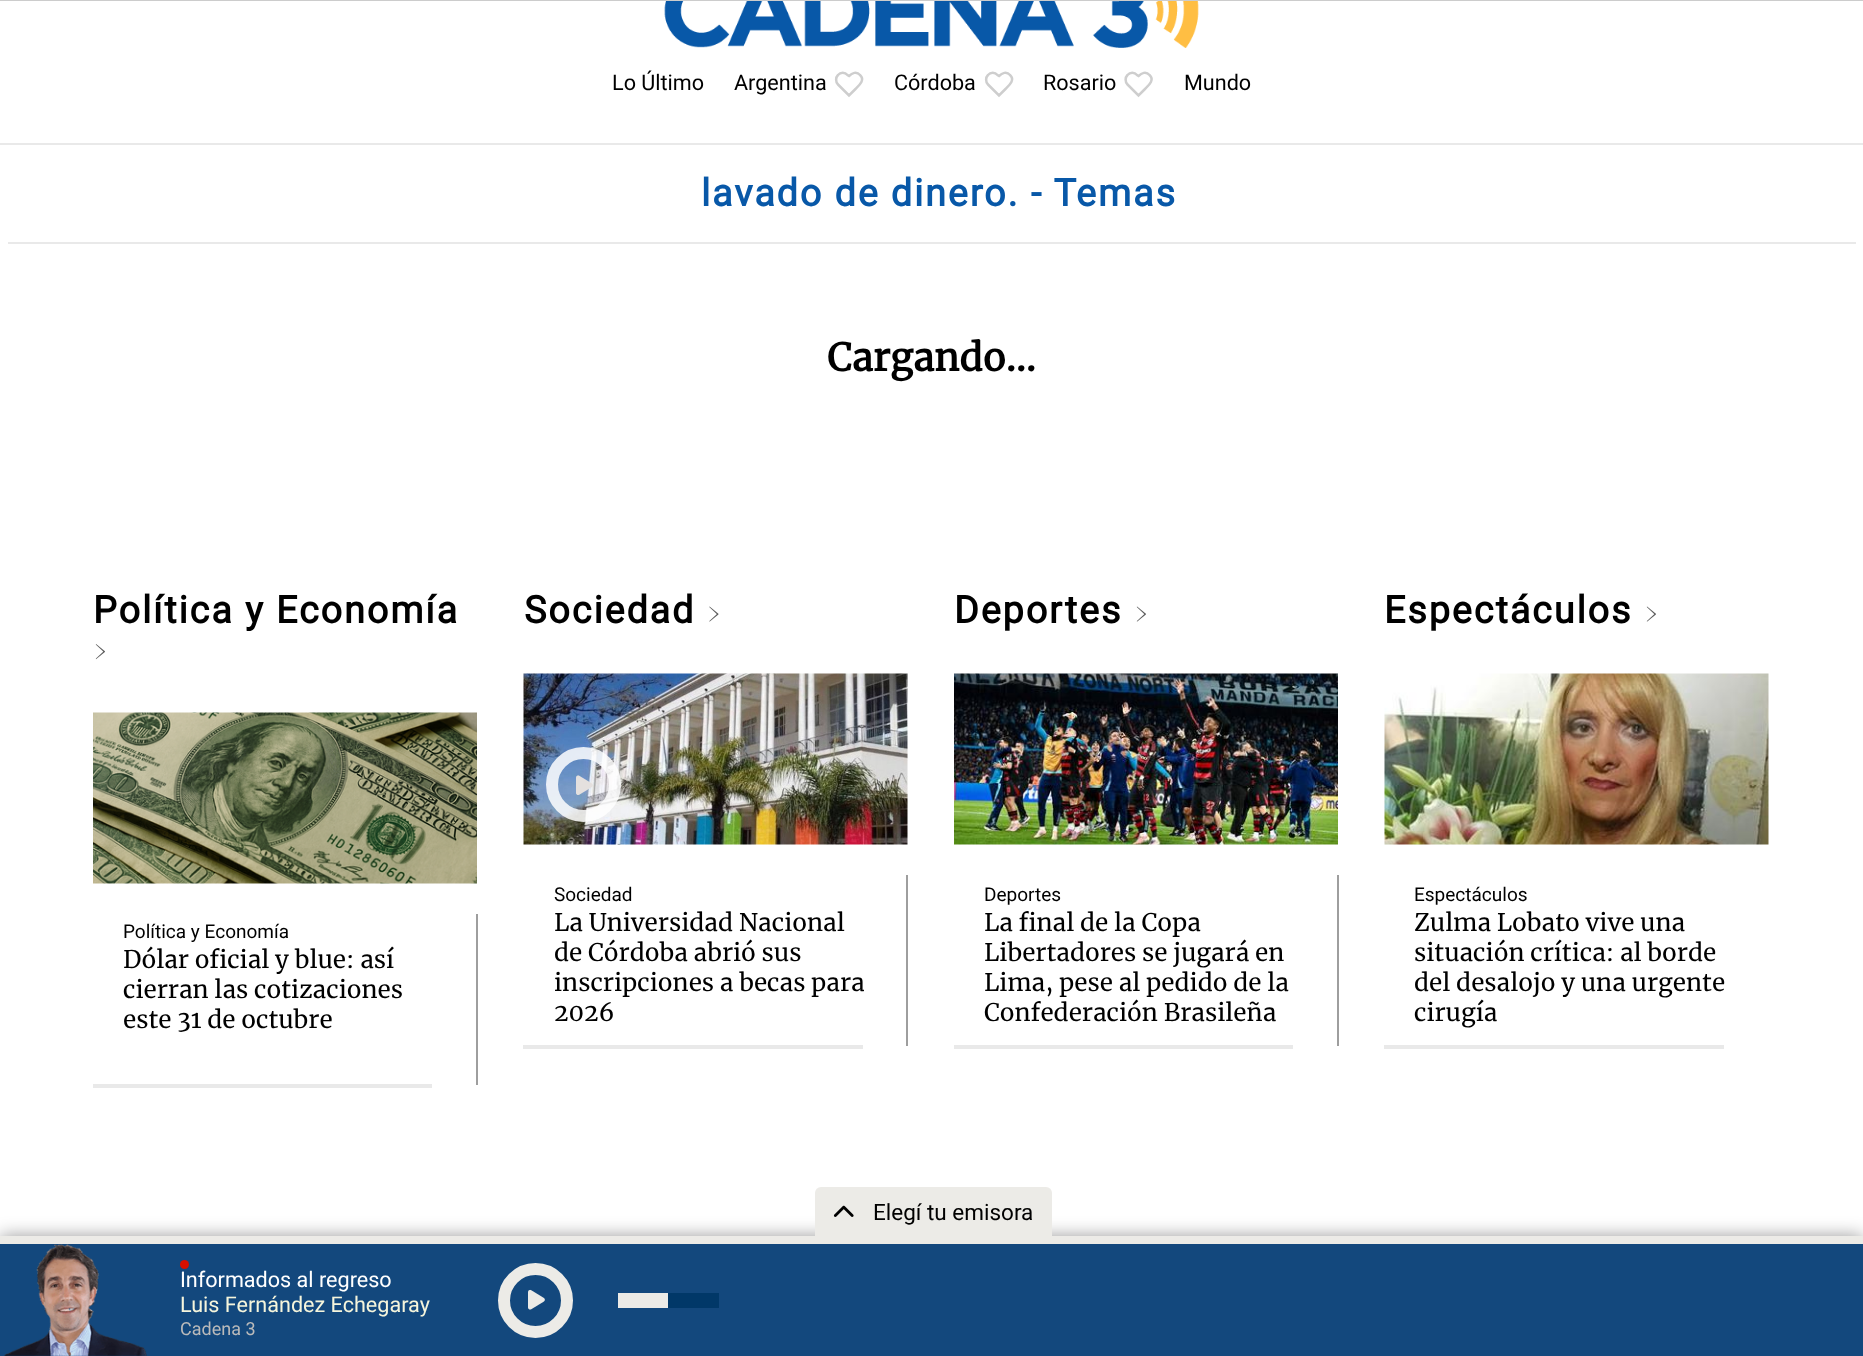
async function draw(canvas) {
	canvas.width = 1863;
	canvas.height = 1356;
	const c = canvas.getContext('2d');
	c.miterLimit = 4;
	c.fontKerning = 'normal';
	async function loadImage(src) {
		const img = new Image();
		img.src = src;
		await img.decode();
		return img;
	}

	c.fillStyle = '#fff';
	c.fillRect(0, 0, 1863, 1356);
	c.drawImage(await loadImage('img1.png'), 664, 1, 535, 47);
	c.fillStyle = '#e9e9e9';
	c.fillRect(0, 143, 1863, 2);
	c.font = '21.6px Roboto';
	c.fillStyle = '#000';
	c.fillText('Lo Último', 612, 90);
	c.fillText('Argentina', 734, 90);
	c.beginPath();
	c.moveTo(860, 75);
	c.bezierCurveTo(856.5, 71, 852, 73, 849, 76);
	c.lineTo(847.5, 75);
	c.bezierCurveTo(845, 72, 840.5, 72, 838, 75);
	c.bezierCurveTo(835.5, 77.5, 835.5, 82, 838, 84.5);
	c.lineTo(849, 95.5);
	c.lineTo(855.5, 89);
	c.bezierCurveTo(859, 85.5, 865.5, 80, 860, 75);
	c.closePath();
	c.strokeStyle = '#cecece';
	c.lineWidth = 2.5;
	c.stroke();
	c.fillText('Córdoba', 894, 90);
	c.beginPath();
	c.moveTo(1010, 75);
	c.bezierCurveTo(1006.5, 71, 1002, 73, 999, 76);
	c.lineTo(997.5, 75);
	c.bezierCurveTo(995, 72, 990.5, 72, 988, 75);
	c.bezierCurveTo(985.5, 77.5, 985.5, 82, 988, 84.5);
	c.lineTo(999, 95.5);
	c.lineTo(1005.5, 89);
	c.bezierCurveTo(1009, 85.5, 1015.5, 80, 1010, 75);
	c.closePath();
	c.stroke();
	c.fillText('Rosario', 1043, 90);
	c.beginPath();
	c.moveTo(1149.5, 75);
	c.bezierCurveTo(1146, 71, 1141.5, 73, 1138.5, 76);
	c.lineTo(1137, 75);
	c.bezierCurveTo(1134.5, 72, 1130, 72, 1127.5, 75);
	c.bezierCurveTo(1125, 77.5, 1125, 82, 1127.5, 84.5);
	c.lineTo(1138.5, 95.5);
	c.lineTo(1145, 89);
	c.bezierCurveTo(1148.5, 85.5, 1155, 80, 1149.5, 75);
	c.closePath();
	c.stroke();
	c.fillText('Mundo', 1184, 90);
	c.fillStyle = '#e9e9e9';
	c.fillRect(8, 242, 1848, 2);
	c.letterSpacing = '1.9px';
	c.font = 'bold 37.75px Roboto';
	c.fillStyle = '#0858a8';
	c.fillText('lavado de dinero. - Temas', 701, 206);
	c.letterSpacing = '0px';
	c.font = 'bold 37.75px Merriweather';
	c.fillStyle = '#000';
	c.fillText('Cargando...', 827, 371);
	c.fillStyle = '#ccc';
	c.fillRect(0, 0, 1863, 1);
	c.letterSpacing = '1.9px';
	c.font = 'bold 37.75px Roboto';
	c.fillStyle = '#000';
	c.fillText('Política y Economía', 93, 623);
	c.drawImage(await loadImage('img2.png'), 95, 644, 10, 16);
	c.fillStyle = '#e9e9e9';
	c.fillRect(93, 1084, 339, 4);
	c.drawImage(await loadImage('img3.png'), 93, 712, 384, 172);
	c.fillStyle = '#9e9e9e';
	c.fillRect(476, 914, 2, 171);
	c.letterSpacing = '0px';
	c.font = '19px Roboto';
	c.fillStyle = '#000';
	c.fillText('Política y Economía', 123, 938);
	c.font = '24.25px Merriweather';
	for (const [text, x, y] of [
		['Dólar oficial y blue: así', 123, 968],
		['cierran las cotizaciones', 123, 998],
		['este 31 de octubre', 123, 1028],
	]) {
		c.fillText(text, x, y);
	}
	c.letterSpacing = '1.9px';
	c.font = 'bold 37.75px Roboto';
	c.fillText('Sociedad', 524, 623);
	c.drawImage(await loadImage('img4.png'), 709, 606, 10, 16);
	c.fillStyle = '#e9e9e9';
	c.fillRect(523, 1045, 340, 4);
	c.drawImage(await loadImage('img5.png'), 523, 673, 385, 172);
	c.beginPath();
	c.arc(583.5, 784.5, 31.5, 0, 2 * Math.PI);
	c.strokeStyle = '#ffffffd6';
	c.lineWidth = 12;
	c.stroke();
	c.drawImage(await loadImage('img6.png'), 576, 775, 17, 20);
	c.fillStyle = '#9e9e9e';
	c.fillRect(906, 875, 2, 171);
	c.letterSpacing = '0px';
	c.font = '19px Roboto';
	c.fillStyle = '#000';
	c.fillText('Sociedad', 554, 901);
	c.font = '24.25px Merriweather';
	for (const [text, x, y] of [
		['La Universidad Nacional', 554, 931],
		['de Córdoba abrió sus', 554, 961],
		['inscripciones a becas para', 554, 991],
		['2026', 554, 1021],
	]) {
		c.fillText(text, x, y);
	}
	c.letterSpacing = '1.9px';
	c.font = 'bold 37.75px Roboto';
	c.fillText('Deportes', 954, 623);
	c.drawImage(await loadImage('img7.png'), 1136, 606, 10, 16);
	c.fillStyle = '#e9e9e9';
	c.fillRect(954, 1045, 339, 4);
	c.drawImage(await loadImage('img8.png'), 954, 673, 384, 172);
	c.fillStyle = '#9e9e9e';
	c.fillRect(1337, 875, 2, 171);
	c.letterSpacing = '0px';
	c.font = '19px Roboto';
	c.fillStyle = '#000';
	c.fillText('Deportes', 984, 901);
	c.font = '24.25px Merriweather';
	for (const [text, x, y] of [
		['La final de la Copa', 984, 931],
		['Libertadores se jugará en', 984, 961],
		['Lima, pese al pedido de la', 984, 991],
		['Confederación Brasileña', 984, 1021],
	]) {
		c.fillText(text, x, y);
	}
	c.letterSpacing = '1.9px';
	c.font = 'bold 37.75px Roboto';
	c.fillText('Espectáculos', 1384, 623);
	c.drawImage(await loadImage('img7.png'), 1646, 606, 10, 16);
	c.fillStyle = '#e9e9e9';
	c.fillRect(1384, 1045, 340, 4);
	c.drawImage(await loadImage('img9.png'), 1384, 673, 385, 172);
	c.letterSpacing = '0px';
	c.font = '19px Roboto';
	c.fillStyle = '#000';
	c.fillText('Espectáculos', 1414, 901);
	c.font = '24.25px Merriweather';
	for (const [text, x, y] of [
		['Zulma Lobato vive una', 1414, 931],
		['situación crítica: al borde', 1414, 961],
		['del desalojo y una urgente', 1414, 991],
		['cirugía', 1414, 1021],
	]) {
		c.fillText(text, x, y);
	}
	c.fillStyle = '#00000066';
	c.filter = 'blur(9px)';
	c.beginPath();
	c.rect(0, 1236, 1863, 120);
	c.fill();
	c.filter = 'none';
	c.fillStyle = '#13487d';
	c.fillRect(0, 1244, 1863, 112);
	c.fillStyle = '#ecebe7';
	c.fillRect(0, 1236, 1863, 8);
	c.beginPath();
	c.roundRect(815, 1187, 237, 51, [6, 6, 0, 0]);
	c.fill();
	c.drawImage(await loadImage('img10.png'), 833, 1205, 21, 12);
	c.font = '22.5px Roboto';
	c.fillStyle = '#000';
	c.fillText('Elegí tu emisora', 873, 1220);
	c.drawImage(await loadImage('img11.png'), 4, 1244, 143, 112);
	c.fillStyle = '#d70f00';
	c.beginPath();
	c.arc(184.5, 1264.5, 4.5, 0, 2 * Math.PI);
	c.fill();
	c.font = '21.6px Roboto';
	c.fillStyle = '#fff';
	c.fillText('Informados al regreso', 180, 1287);
	c.fillStyle = '#f5f5dc';
	c.fillText('Luis Fernández Echegaray', 180, 1312);
	c.font = '18px Roboto';
	c.fillStyle = '#bbb';
	c.fillText('Cadena 3', 180, 1335);
	c.beginPath();
	c.arc(535.5, 1300.5, 31.5, 0, 2 * Math.PI);
	c.strokeStyle = '#ecebe7';
	c.stroke();
	c.drawImage(await loadImage('img12.png'), 528, 1289, 17, 21);
	c.fillStyle = '#013868';
	c.fillRect(668, 1293, 51, 15);
	c.fillStyle = '#ecebe7';
	c.fillRect(618, 1293, 50, 15);
}

draw(document.querySelector('canvas'));
